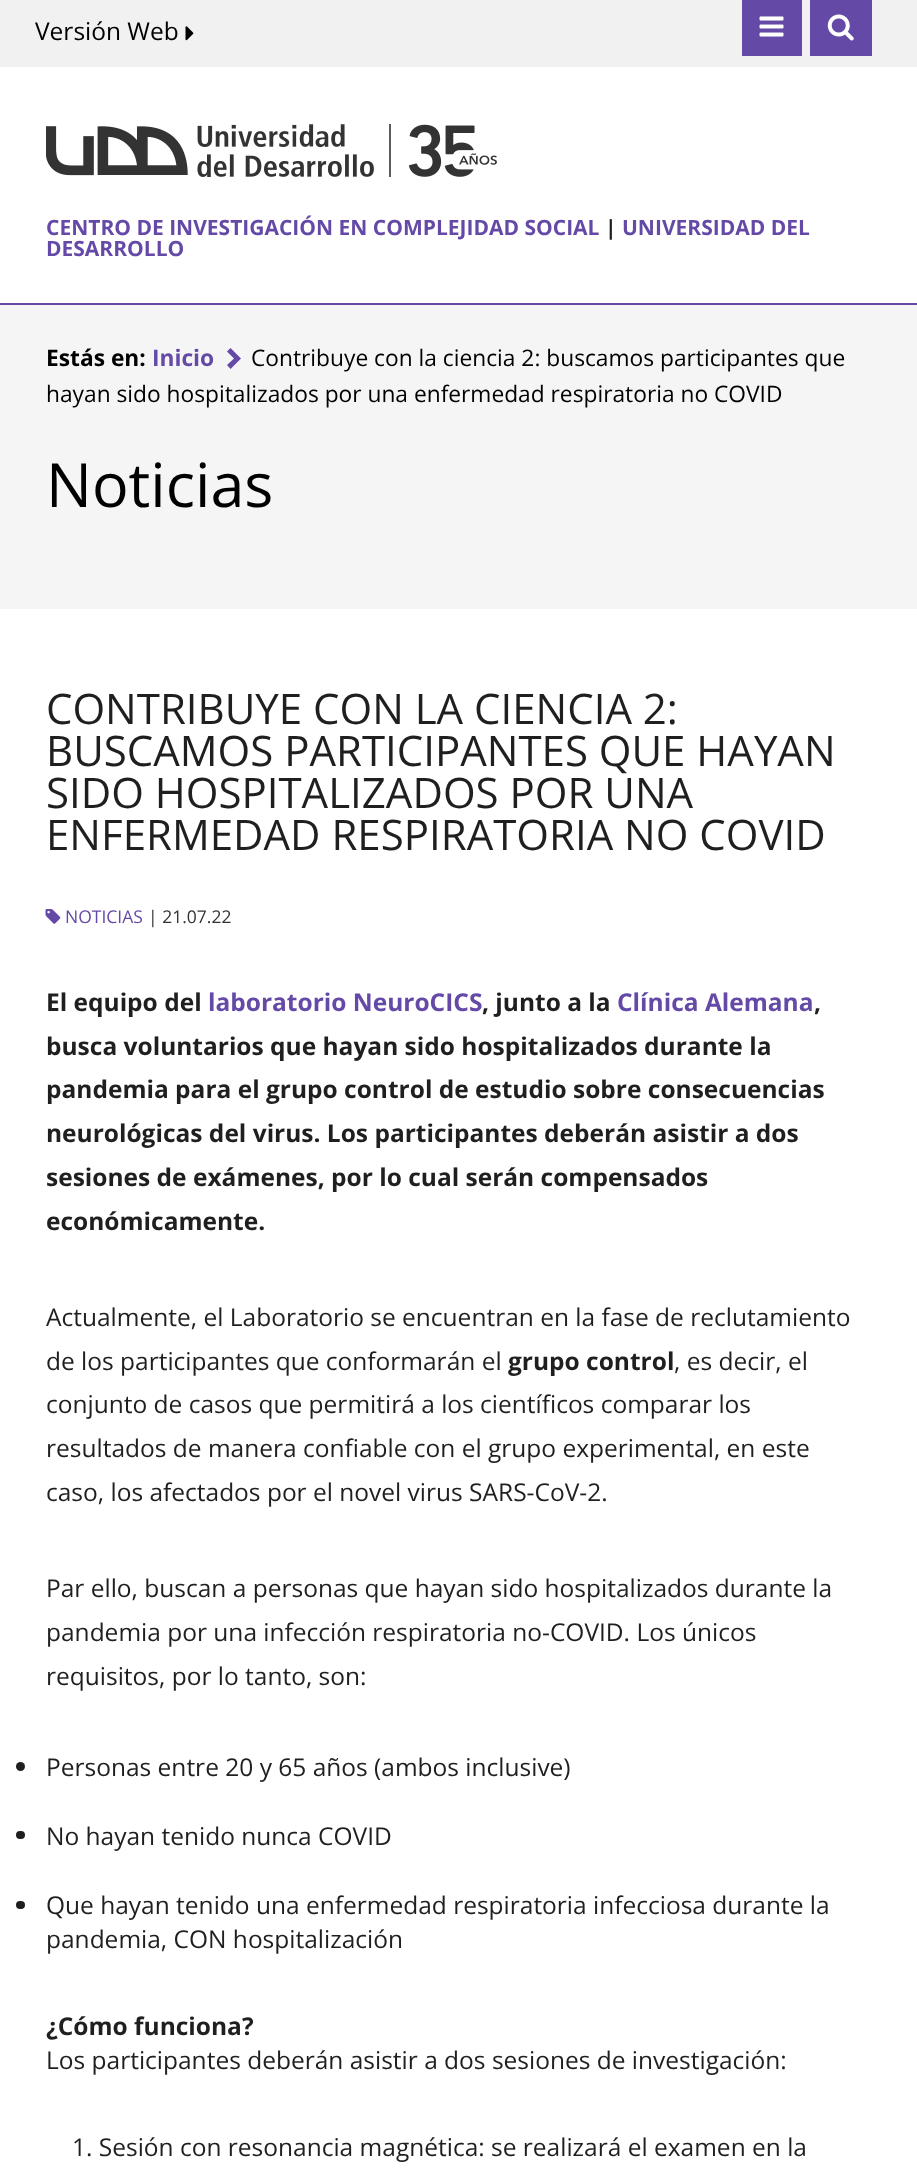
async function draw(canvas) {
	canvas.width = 917;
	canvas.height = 2169;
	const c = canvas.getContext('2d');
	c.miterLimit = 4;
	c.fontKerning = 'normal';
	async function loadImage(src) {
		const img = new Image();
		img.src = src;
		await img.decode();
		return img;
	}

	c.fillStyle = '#fff';
	c.fillRect(0, 0, 917, 2169);
	c.fillStyle = '#6549a6';
	c.fillRect(0, 303, 917, 2);
	c.fillStyle = '#f1f1f1';
	c.fillRect(0, 0, 917, 67);
	c.font = '24.5px Open Sans';
	c.fillStyle = '#000';
	c.fillText('Versión Web', 35, 40);
	c.drawImage(await loadImage('img1.png'), 185, 26, 9, 15);
	c.fillStyle = '#6549a6';
	c.fillRect(742, 0, 60, 56);
	c.drawImage(await loadImage('img2.png'), 759, 16, 25, 21);
	c.fillRect(810, 0, 62, 56);
	c.drawImage(await loadImage('img3.png'), 827, 14, 27, 27);
	c.drawImage(await loadImage('img4.png'), 46, 124, 451, 53);
	c.font = 'bold 21px Open Sans';
	c.fillText('CENTRO DE INVESTIGACIÓN EN COMPLEJIDAD SOCIAL', 46, 235);
	c.fillStyle = '#1f1f1f';
	c.fillText('|', 605, 235);
	c.fillStyle = '#6549a6';
	c.fillText('UNIVERSIDAD DEL', 622, 235);
	c.fillText('DESARROLLO', 46, 256);
	c.fillStyle = '#f5f5f5';
	c.fillRect(0, 305, 917, 304);
	c.font = 'bold 22.75px Open Sans';
	c.fillStyle = '#000';
	c.fillText('Estás en:', 46, 366);
	c.fillStyle = '#6549a6';
	c.fillText('Inicio', 152, 366);
	c.beginPath();
	c.moveTo(230.5, 348);
	c.lineTo(227, 351.5);
	c.lineTo(234, 358.5);
	c.lineTo(227, 365);
	c.lineTo(230.5, 369);
	c.lineTo(241, 358.5);
	c.closePath();
	c.fill();
	c.font = '22.75px Open Sans';
	c.fillStyle = '#000';
	c.fillText('Contribuye con la ciencia 2: buscamos participantes que', 251, 366);
	c.fillText('hayan sido hospitalizados por una enfermedad respiratoria no COVID', 46, 402);
	c.font = '61px Open Sans';
	c.fillText('Noticias', 46, 507);
	c.font = '42px Open Sans';
	c.fillStyle = '#1f1f1f';
	for (const [text, x, y] of [
		['CONTRIBUYE CON LA CIENCIA 2:', 46, 724],
		['BUSCAMOS PARTICIPANTES QUE HAYAN', 46, 766],
		['SIDO HOSPITALIZADOS POR UNA', 46, 808],
		['ENFERMEDAD RESPIRATORIA NO COVID', 46, 850],
	]) {
		c.fillText(text, x, y);
	}
	c.drawImage(await loadImage('img5.png'), 45, 909, 16, 15);
	c.font = '17.5px Open Sans';
	c.fillStyle = '#6549a6';
	c.fillText('NOTICIAS', 65, 923);
	c.fillStyle = '#333';
	c.fillText('| 21.07.22', 148, 923);
	c.font = 'bold 24.5px Open Sans';
	c.fillStyle = '#1f1f1f';
	c.fillText('El equipo del', 46, 1011);
	c.fillStyle = '#6549a6';
	c.fillText('laboratorio NeuroCICS', 208, 1011);
	c.fillStyle = '#1f1f1f';
	c.fillText(', junto a la', 482, 1011);
	c.fillStyle = '#6549a6';
	c.fillText('Clínica Alemana', 617, 1011);
	c.fillStyle = '#1f1f1f';
	for (const [text, x, y] of [
		[',', 814, 1011],
		['busca voluntarios que hayan sido hospitalizados durante la', 46, 1055],
		['pandemia para el grupo control de estudio sobre consecuencias', 46, 1098],
		['neurológicas del virus. Los participantes deberán asistir a dos', 46, 1142],
		['sesiones de exámenes, por lo cual serán compensados', 46, 1186],
		['económicamente.', 46, 1230],
	]) {
		c.fillText(text, x, y);
	}
	c.font = '24.5px Open Sans';
	c.fillText('Actualmente, el Laboratorio se encuentran en la fase de reclutamiento', 46, 1326);
	c.fillText('de los participantes que conformarán el', 46, 1370);
	c.font = 'bold 24.5px Open Sans';
	c.fillText('grupo control', 508, 1370);
	c.font = '24.5px Open Sans';
	for (const [text, x, y] of [
		[', es decir, el', 674, 1370],
		['conjunto de casos que permitirá a los científicos comparar los', 46, 1413],
		['resultados de manera confiable con el grupo experimental, en este', 46, 1457],
		['caso, los afectados por el novel virus SARS-CoV-2.', 46, 1501],
		['Par ello, buscan a personas que hayan sido hospitalizados durante la', 46, 1597],
		['pandemia por una infección respiratoria no-COVID. Los únicos', 46, 1641],
		['requisitos, por lo tanto, son:', 46, 1685],
	]) {
		c.fillText(text, x, y);
	}
	c.beginPath();
	c.arc(20.5, 1766.5, 4.5, 0, 2 * Math.PI);
	c.fill();
	c.fillText('Personas entre 20 y 65 años (ambos inclusive)', 46, 1776);
	c.beginPath();
	c.roundRect(16, 1831, 9, 8, 4);
	c.fill();
	c.fillText('No hayan tenido nunca COVID', 46, 1845);
	c.beginPath();
	c.roundRect(16, 1901, 9, 8, 4);
	c.fill();
	c.fillText('Que hayan tenido una enfermedad respiratoria infecciosa durante la', 46, 1914);
	c.fillText('pandemia, CON hospitalización', 46, 1948);
	c.font = 'bold 24.5px Open Sans';
	c.fillText('¿Cómo funciona?', 46, 2035);
	c.font = '24.5px Open Sans';
	c.fillText('Los participantes deberán asistir a dos sesiones de investigación:', 46, 2069);
	c.fillText('1. Sesión con resonancia magnética: se realizará el examen en la', 72, 2156);
}

draw(document.querySelector('canvas'));
